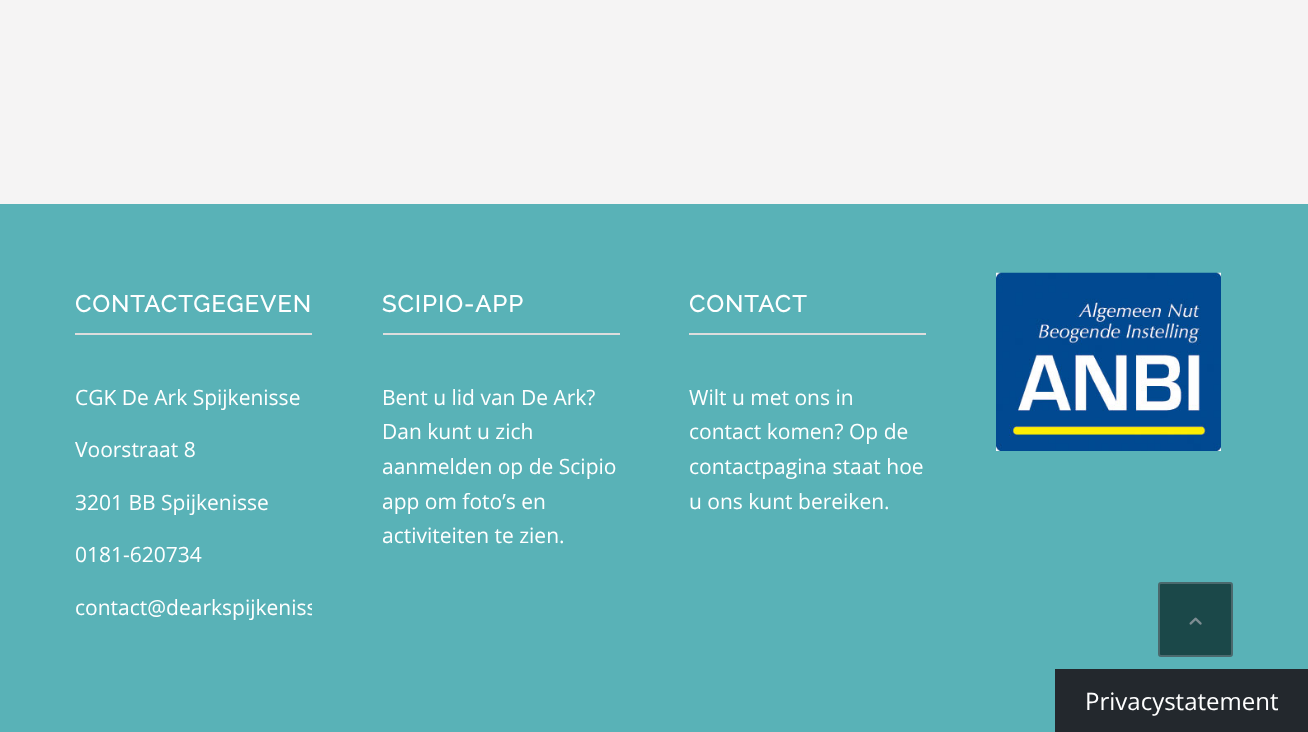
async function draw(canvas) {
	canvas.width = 1308;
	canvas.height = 732;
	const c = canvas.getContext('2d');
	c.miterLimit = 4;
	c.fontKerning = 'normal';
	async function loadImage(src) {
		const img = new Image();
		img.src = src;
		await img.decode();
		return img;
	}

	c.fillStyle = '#f5f4f4';
	c.fillRect(0, 0, 1308, 732);
	c.fillStyle = '#59b2b7';
	c.fillRect(0, 204, 1308, 528);
	c.letterSpacing = '1.5px';
	c.font = 'bold 23.1px Raleway';
	c.fillStyle = '#fff';
	c.fillText('CONTACTGEGEVEN', 75, 312);
	c.fillStyle = '#ddd';
	c.fillRect(75, 333, 237, 2);
	c.letterSpacing = '0px';
	c.font = '21px Open Sans';
	c.fillStyle = '#fff';
	for (const [text, x, y] of [
		['CGK De Ark Spijkenisse', 75, 405],
		['Voorstraat 8', 75, 457],
		['3201 BB Spijkenisse', 75, 510],
		['0181-620734', 75, 562],
	]) {
		c.fillText(text, x, y);
	}
	c.save();
	c.beginPath();
	c.rect(75, 273, 237, 369);
	c.clip();
	c.fillText('contact@dearkspijkeniss', 75, 615);
	c.restore();
	c.letterSpacing = '1.5px';
	c.font = 'bold 23.1px Raleway';
	c.fillText('SCIPIO-APP', 382, 312);
	c.fillStyle = '#ddd';
	c.fillRect(383, 333, 237, 2);
	c.letterSpacing = '0px';
	c.font = '21px Open Sans';
	c.fillStyle = '#fff';
	for (const [text, x, y] of [
		['Bent u lid van De Ark?', 382, 405],
		['Dan kunt u zich', 382, 439],
		['aanmelden op de Scipio', 382, 474],
		['app om foto’s en', 382, 509],
		['activiteiten te zien.', 382, 543],
	]) {
		c.fillText(text, x, y);
	}
	c.letterSpacing = '1.5px';
	c.font = 'bold 23.1px Raleway';
	c.fillText('CONTACT', 689, 312);
	c.fillStyle = '#ddd';
	c.fillRect(689, 333, 237, 2);
	c.letterSpacing = '0px';
	c.font = '21px Open Sans';
	c.fillStyle = '#fff';
	for (const [text, x, y] of [
		['Wilt u met ons in', 689, 405],
		['contact komen? Op de', 689, 439],
		['contactpagina staat hoe', 689, 474],
		['u ons kunt bereiken.', 689, 509],
	]) {
		c.fillText(text, x, y);
	}
	c.drawImage(await loadImage('img1.png'), 996, 272, 225, 179);
	c.fillStyle = '#1b4849';
	c.beginPath();
	c.roundRect(1159, 583, 73, 73, 2);
	c.fill();
	c.strokeStyle = '#4b696d';
	c.lineWidth = 2;
	c.stroke();
	c.drawImage(await loadImage('img2.png'), 1189, 617, 13, 8);
	c.fillStyle = '#23282d';
	c.fillRect(1055, 669, 253, 63);
	c.font = '24px Open Sans';
	c.fillStyle = '#fff';
	c.fillText('Privacystatement', 1085, 710);
}

draw(document.querySelector('canvas'));
